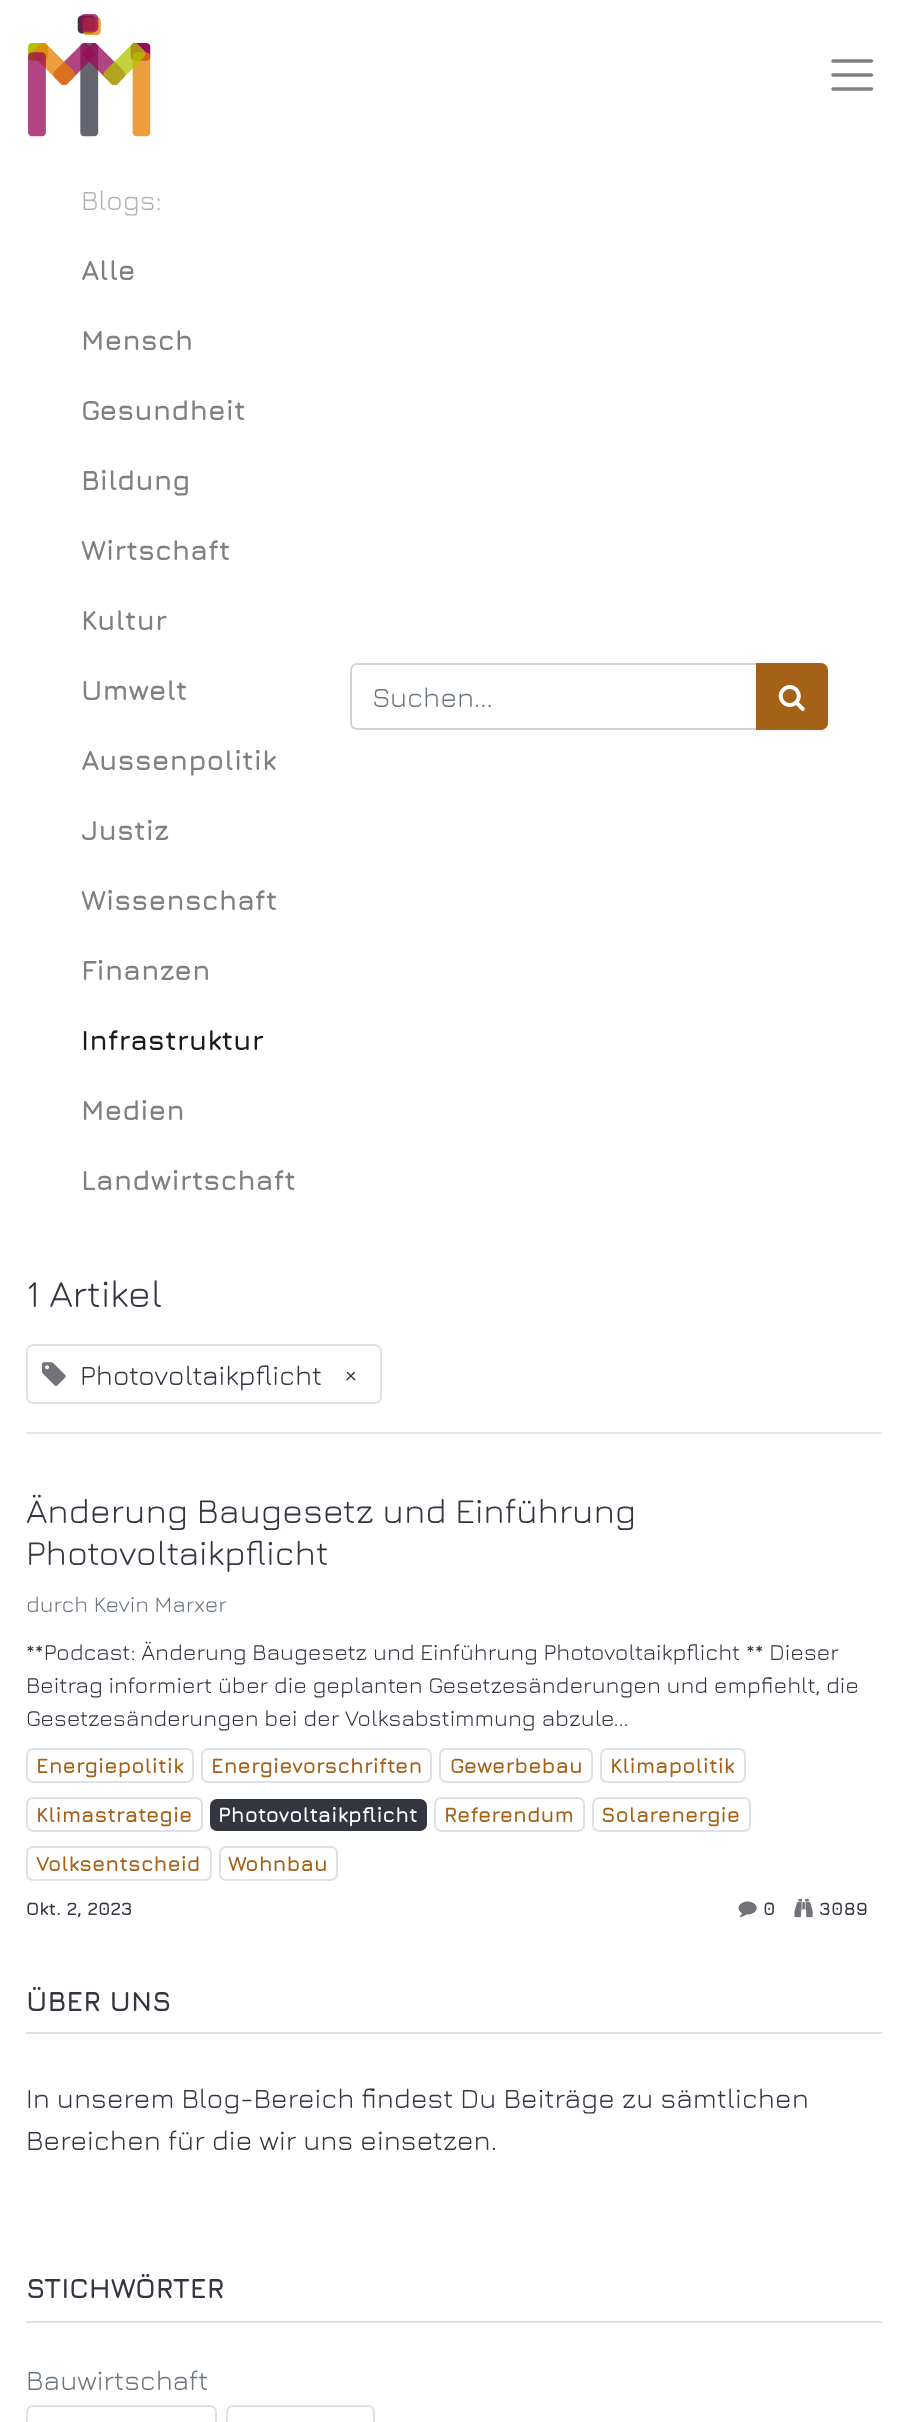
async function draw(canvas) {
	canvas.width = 908;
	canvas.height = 2422;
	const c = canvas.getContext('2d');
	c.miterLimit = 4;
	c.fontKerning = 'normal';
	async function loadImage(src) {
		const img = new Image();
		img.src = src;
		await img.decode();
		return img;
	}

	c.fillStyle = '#fff';
	c.fillRect(0, 0, 908, 2422);
	c.drawImage(await loadImage('img1.png'), 28, 14, 123, 123);
	c.beginPath();
	c.moveTo(833, 61);
	c.lineTo(871.5, 61);
	c.moveTo(833, 75);
	c.lineTo(871.5, 75);
	c.moveTo(833, 89);
	c.lineTo(871.5, 89);
	c.strokeStyle = '#808080';
	c.lineWidth = 3.5;
	c.lineCap = 'round';
	c.stroke();
	c.font = '28px Jura';
	c.fillStyle = '#b3b3b3';
	c.fillText('Blogs:', 81, 210);
	c.font = 'bold 28px Jura';
	c.fillStyle = '#808080';
	for (const [text, x, y] of [
		['Alle', 81, 280],
		['Mensch', 81, 350],
		['Gesundheit', 81, 420],
		['Bildung', 81, 490],
		['Wirtschaft', 81, 560],
		['Kultur', 81, 630],
		['Umwelt', 81, 700],
		['Aussenpolitik', 81, 770],
		['Justiz', 81, 840],
		['Wissenschaft', 81, 910],
		['Finanzen', 81, 980],
	]) {
		c.fillText(text, x, y);
	}
	c.fillStyle = '#1a1a1a';
	c.fillText('Infrastruktur', 81, 1050);
	c.fillStyle = '#808080';
	c.fillText('Medien', 81, 1120);
	c.fillText('Landwirtschaft', 81, 1190);
	c.beginPath();
	c.roundRect(351, 664, 406, 65, [6, 0, 0, 6]);
	c.strokeStyle = '#ced4da';
	c.lineWidth = 2;
	c.stroke();
	c.font = '28px Jura';
	c.fillStyle = '#6c757d';
	c.fillText('Suchen...', 372, 707);
	c.fillStyle = '#a56118';
	c.beginPath();
	c.roundRect(757, 664, 70, 65, [0, 6, 6, 0]);
	c.fill();
	c.strokeStyle = '#a56118';
	c.stroke();
	c.drawImage(await loadImage('img2.png'), 778, 685, 27, 26);
	c.font = '38.5px Jura';
	c.fillStyle = '#333540';
	c.fillText('1 Artikel', 26, 1307);
	c.beginPath();
	c.roundRect(27, 1345, 354, 58, 6);
	c.strokeStyle = '#dee2e6';
	c.stroke();
	c.drawImage(await loadImage('img3.png'), 42, 1362, 24, 24);
	c.font = '28px Jura';
	c.fillText('Photovoltaikpflicht', 80, 1385);
	c.fillText('×', 343, 1385);
	c.fillStyle = '#e6e6e6';
	c.fillRect(26, 1432, 856, 2);
	c.font = '35px Jura';
	c.fillStyle = '#333540';
	c.fillText('Änderung Baugesetz und Einführung', 26, 1523);
	c.fillText('Photovoltaikpflicht', 26, 1565);
	c.font = '22.5px Jura';
	c.fillStyle = '#6c757d';
	c.fillText('durch Kevin Marxer', 26, 1612);
	c.font = '22.75px Jura';
	c.fillStyle = '#333540';
	for (const [text, x, y] of [
		['**Podcast: Änderung Baugesetz und Einführung Photovoltaikpflicht ** Dieser', 26, 1660],
		['Beitrag informiert über die geplanten Gesetzesänderungen und empfiehlt, die', 26, 1693],
		['Gesetzesänderungen bei der Volksabstimmung abzule...', 26, 1726],
	]) {
		c.fillText(text, x, y);
	}
	c.beginPath();
	c.roundRect(27, 1749, 166, 33, 6);
	c.stroke();
	c.font = 'bold 21px Jura';
	c.fillStyle = '#a56118';
	c.fillText('Energiepolitik', 36, 1773);
	c.beginPath();
	c.roundRect(202, 1749, 229, 33, 6);
	c.stroke();
	c.fillText('Energievorschriften', 211, 1773);
	c.beginPath();
	c.roundRect(440, 1749, 152, 33, 6);
	c.stroke();
	c.fillText('Gewerbebau', 450, 1773);
	c.beginPath();
	c.roundRect(601, 1749, 144, 33, 6);
	c.stroke();
	c.fillText('Klimapolitik', 610, 1773);
	c.beginPath();
	c.roundRect(27, 1798, 175, 33, 6);
	c.stroke();
	c.fillText('Klimastrategie', 36, 1822);
	c.fillStyle = '#333540';
	c.beginPath();
	c.roundRect(210, 1799, 217, 32, 7);
	c.fill();
	c.fillStyle = '#fff';
	c.fillText('Photovoltaikpflicht', 218, 1822);
	c.beginPath();
	c.roundRect(435, 1798, 149, 33, 6);
	c.stroke();
	c.fillStyle = '#a56118';
	c.fillText('Referendum', 444, 1822);
	c.beginPath();
	c.roundRect(593, 1798, 157, 33, 6);
	c.stroke();
	c.fillText('Solarenergie', 601, 1822);
	c.beginPath();
	c.roundRect(27, 1847, 184, 33, 6);
	c.stroke();
	c.fillText('Volksentscheid', 36, 1871);
	c.beginPath();
	c.roundRect(220, 1847, 117, 33, 6);
	c.stroke();
	c.fillText('Wohnbau', 228, 1871);
	c.font = 'bold 18.25px Jura';
	c.fillStyle = '#333540';
	c.fillText('Okt. 2, 2023', 26, 1915);
	c.drawImage(await loadImage('img4.png'), 738, 1901, 19, 17);
	c.fillText('0', 763, 1915);
	c.drawImage(await loadImage('img5.png'), 794, 1898, 19, 20);
	c.fillText('3089', 819, 1915);
	c.fillStyle = '#dee2e6';
	c.fillRect(26, 2032, 856, 2);
	c.font = 'bold 28px Jura';
	c.fillStyle = '#333540';
	c.fillText('ÜBER UNS', 26, 2011);
	c.font = '28px Jura';
	c.fillText('In unserem Blog-Bereich findest Du Beiträge zu sämtlichen', 26, 2108);
	c.fillText('Bereichen für die wir uns einsetzen.', 26, 2150);
	c.fillStyle = '#dee2e6';
	c.fillRect(26, 2321, 856, 2);
	c.font = 'bold 28px Jura';
	c.fillStyle = '#333540';
	c.fillText('STICHWÖRTER', 26, 2298);
	c.font = '28px Jura';
	c.fillStyle = '#6c757d';
	c.fillText('Bauwirtschaft', 26, 2390);
	c.beginPath();
	c.roundRect(27, 2406, 189, 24, 6);
	c.stroke();
	c.beginPath();
	c.roundRect(227, 2406, 147, 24, 6);
	c.stroke();
}

draw(document.querySelector('canvas'));
